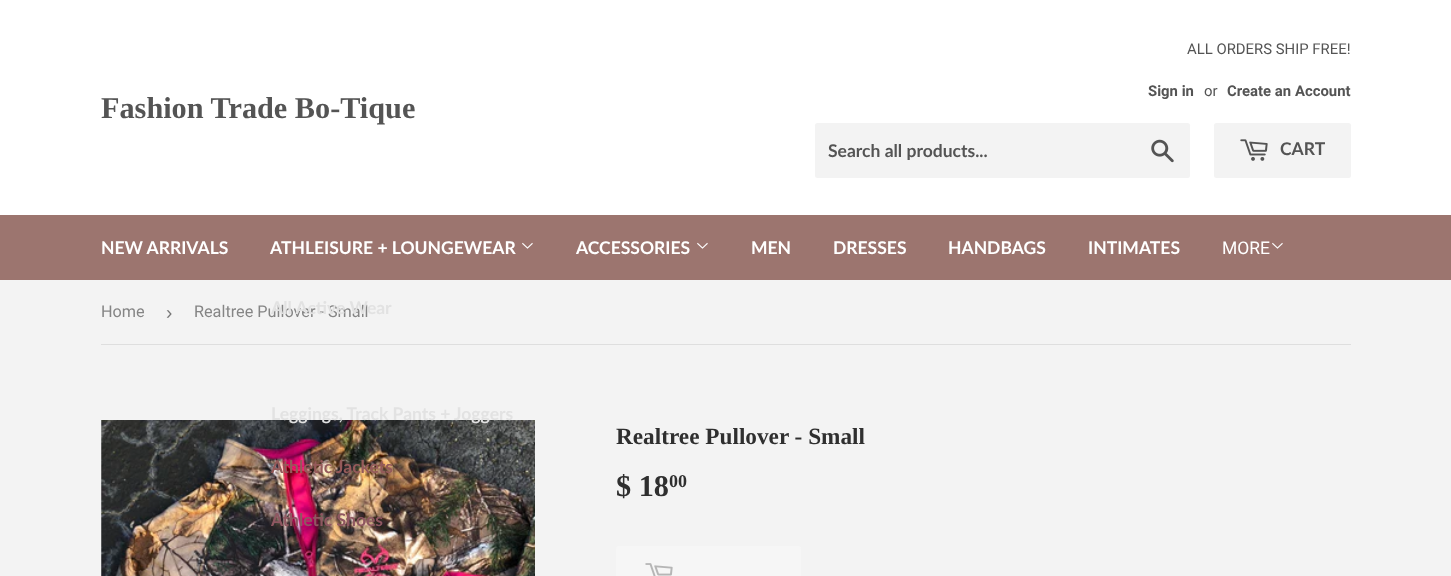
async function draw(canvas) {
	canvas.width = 1451;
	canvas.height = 576;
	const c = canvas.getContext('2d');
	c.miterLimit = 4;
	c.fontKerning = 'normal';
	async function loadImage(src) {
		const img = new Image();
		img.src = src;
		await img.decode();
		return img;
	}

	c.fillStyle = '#f3f3f3';
	c.fillRect(0, 0, 1451, 576);
	c.fillStyle = '#fff';
	c.fillRect(0, 0, 1451, 215);
	c.font = 'bold 30.25px Liberation Serif';
	c.fillStyle = '#545454';
	c.fillText('Fashion Trade Bo-Tique', 101, 118);
	c.font = '14.9px Roboto';
	c.fillText('ALL ORDERS SHIP FREE!', 1187, 54);
	c.font = 'bold 14.9px Roboto';
	c.fillText('Sign in', 1148, 96);
	c.font = '14.9px Roboto';
	c.fillText('or', 1204, 96);
	c.font = 'bold 14.9px Roboto';
	c.fillText('Create an Account', 1227, 96);
	c.fillStyle = '#f3f3f3';
	c.beginPath();
	c.roundRect(815, 123, 375, 55, 2.5);
	c.fill();
	c.font = 'bold 17.5px Lato';
	c.fillStyle = '#545454';
	c.fillText('Search all products...', 828, 157);
	c.drawImage(await loadImage('img1.png'), 1151, 139, 23, 24);
	c.fillStyle = '#f3f3f3';
	c.beginPath();
	c.roundRect(1214, 123, 137, 55, 2.5);
	c.fill();
	c.drawImage(await loadImage('img2.png'), 1240, 139, 28, 22);
	c.fillStyle = '#545454';
	c.fillText('CART', 1280, 155);
	c.fillStyle = '#9c756f';
	c.fillRect(0, 215, 1451, 65);
	c.fillStyle = '#fff';
	c.fillText('NEW ARRIVALS', 101, 254);
	c.fillText('ATHLEISURE + LOUNGEWEAR', 270, 254);
	c.drawImage(await loadImage('img3.png'), 522, 242, 11, 7);
	c.font = '16.25px Roboto';
	c.fillStyle = '#858585';
	c.fillText('Realtree Pullover - Small', 194, 317);
	c.font = 'bold 17.5px Lato';
	c.fillStyle = '#e2e2e2';
	c.fillText('All Active Wear', 271, 314);
	c.drawImage(await loadImage('img4.png'), 101, 420, 434, 156);
	c.fillText('Leggings, Track Pants + Joggers', 271, 420);
	c.fillStyle = '#955a5a';
	c.fillText('Athletic Jackets', 271, 473);
	c.fillStyle = '#8f5761';
	c.fillText('Athletic Shoes', 271, 526);
	c.fillStyle = '#fff';
	c.fillText('ACCESSORIES', 576, 254);
	c.drawImage(await loadImage('img3.png'), 697, 242, 11, 7);
	for (const [text, x, y] of [
		['MEN', 751, 254],
		['DRESSES', 833, 254],
		['HANDBAGS', 948, 254],
		['INTIMATES', 1088, 254],
	]) {
		c.fillText(text, x, y);
	}
	c.font = '17.5px Roboto';
	c.fillText('MORE', 1222, 254);
	c.drawImage(await loadImage('img3.png'), 1272, 242, 11, 7);
	c.fillStyle = '#dedede';
	c.fillRect(101, 344, 1250, 1);
	c.font = '16.25px Roboto';
	c.fillStyle = '#858585';
	c.fillText('Home', 101, 317);
	c.font = '19px Liberation Sans';
	c.fillStyle = '#767676';
	c.fillText('›', 166, 319);
	c.font = 'bold 23.25px Liberation Serif';
	c.fillStyle = '#2f2f2f';
	c.fillText('Realtree Pullover - Small', 616, 444);
	c.font = 'bold 30.25px Liberation Serif';
	c.fillText('$ 18', 616, 496);
	c.font = 'bold 18px Liberation Serif';
	c.fillText('00', 669, 487);
	c.fillStyle = '#f6f6f6';
	c.beginPath();
	c.roundRect(616, 546, 185, 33, 2.5);
	c.fill();
	c.drawImage(await loadImage('img5.png'), 645, 563, 28, 13);
}

draw(document.querySelector('canvas'));
